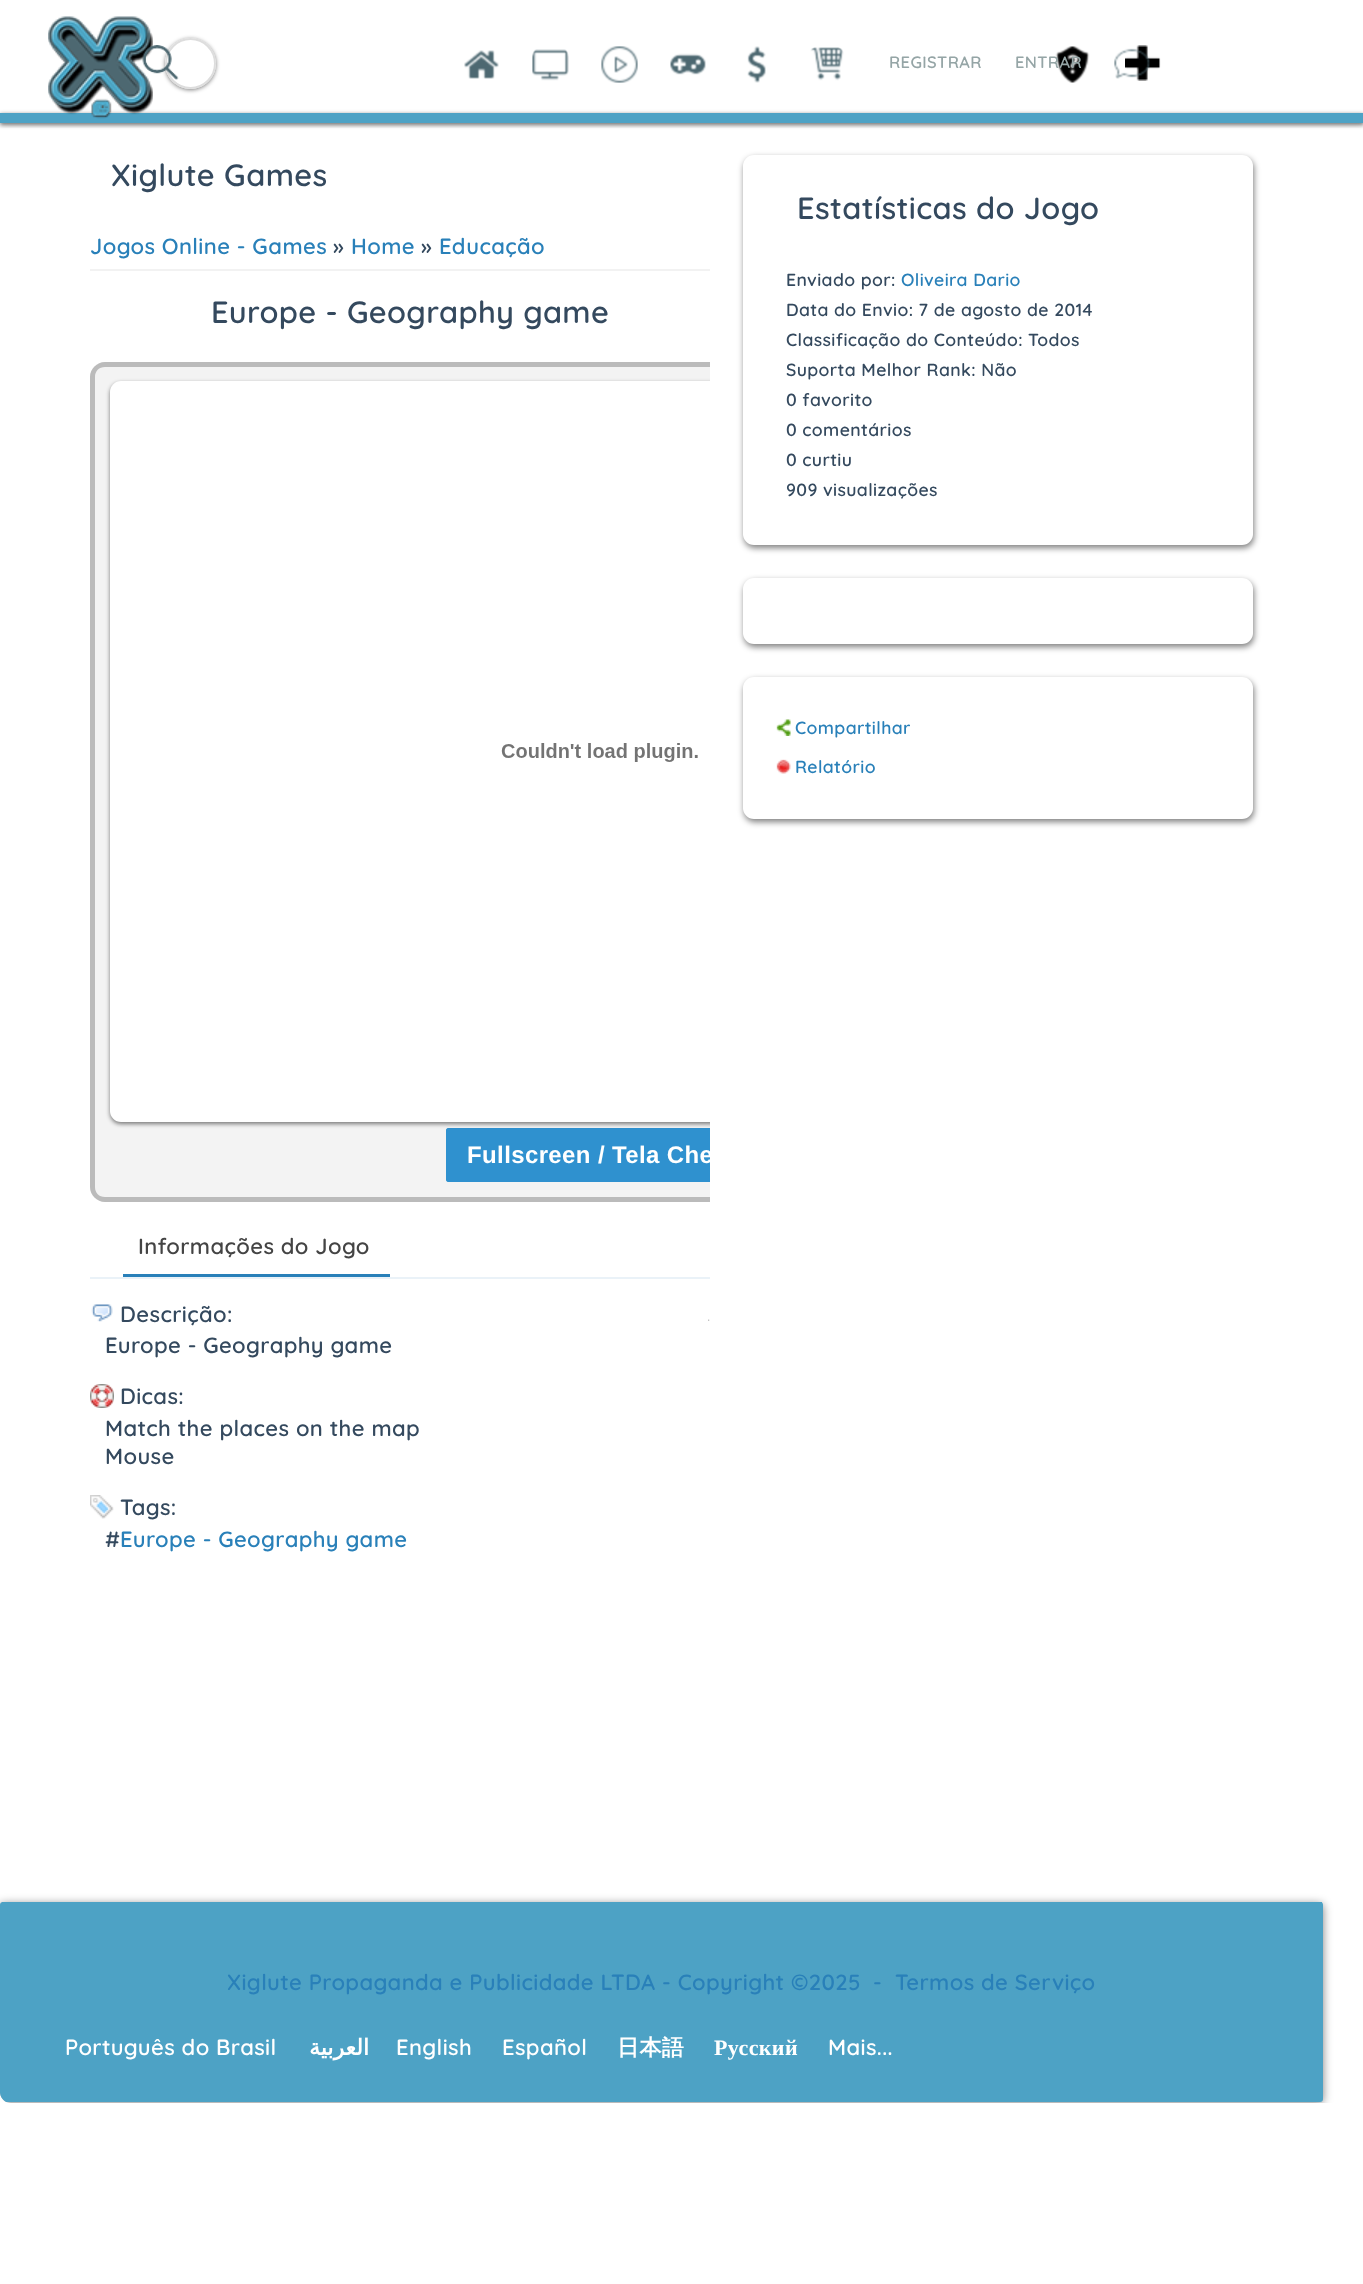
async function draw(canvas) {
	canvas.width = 1363;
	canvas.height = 2284;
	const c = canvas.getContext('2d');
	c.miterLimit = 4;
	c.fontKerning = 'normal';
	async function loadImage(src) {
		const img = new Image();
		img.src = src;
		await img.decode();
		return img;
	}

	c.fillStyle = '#fff';
	c.fillRect(0, 0, 1363, 2284);
	c.save();
	c.beginPath();
	c.rect(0, 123, 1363, 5);
	c.clip();
	c.fillStyle = '#0000001a';
	c.filter = 'blur(4px)';
	c.beginPath();
	c.rect(0, -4, 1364, 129);
	c.fill();
	c.filter = 'none';
	c.restore();
	c.fillStyle = '#00000080';
	c.filter = 'blur(2px)';
	c.beginPath();
	c.rect(0, 114, 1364, 11);
	c.fill();
	c.filter = 'none';
	c.fillStyle = '#4da2c5';
	c.fillRect(0, 113, 1363, 10);
	c.drawImage(await loadImage('img1.png'), 48, 16, 105, 103);
	c.save();
	c.beginPath();
	c.moveTo(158, 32);
	c.lineTo(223, 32);
	c.lineTo(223, 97);
	c.lineTo(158, 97);
	c.closePath();
	c.moveTo(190.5, 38);
	c.bezierCurveTo(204.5, 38, 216, 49.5, 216, 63.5);
	c.bezierCurveTo(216, 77.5, 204.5, 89, 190.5, 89);
	c.bezierCurveTo(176.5, 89, 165, 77.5, 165, 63.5);
	c.bezierCurveTo(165, 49.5, 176.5, 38, 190.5, 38);
	c.closePath();
	c.clip('evenodd');
	c.fillStyle = '#00000080';
	c.filter = 'blur(2px)';
	c.beginPath();
	c.roundRect(165, 39, 51, 51, 25.5);
	c.fill();
	c.filter = 'none';
	c.restore();
	c.beginPath();
	c.arc(190.5, 63.5, 24.5, 0, 2 * Math.PI);
	c.strokeStyle = '#ddd';
	c.lineWidth = 2;
	c.stroke();
	c.drawImage(await loadImage('img2.png'), 142, 45, 37, 35);
	c.drawImage(await loadImage('img3.png'), 464, 50, 35, 29);
	c.drawImage(await loadImage('img4.png'), 532, 49, 37, 32);
	c.drawImage(await loadImage('img5.png'), 601, 46, 37, 37);
	c.drawImage(await loadImage('img6.png'), 670, 53, 36, 22);
	c.drawImage(await loadImage('img7.png'), 747, 46, 19, 37);
	c.drawImage(await loadImage('img8.png'), 810, 47, 34, 34);
	c.letterSpacing = '0.38px';
	c.font = '600 16.5px Quicksand';
	c.fillStyle = '#95a5a6';
	c.fillText('REGISTRAR', 889, 68);
	c.drawImage(await loadImage('img9.png'), 1055, 46, 35, 37);
	c.drawImage(await loadImage('img11.png'), 1125, 45, 36, 36);
	c.drawImage(await loadImage('img10.png'), 1114, 48, 36, 31);
	c.fillText('ENTRAR', 1015, 68);
	c.font = '600 30.75px Quicksand';
	c.fillStyle = '#34495e';
	c.fillText('Xiglute Games', 111, 186);
	c.fillStyle = '#f2f2f2';
	c.fillRect(90, 269, 620, 2);
	c.font = '600 22px Quicksand';
	c.fillStyle = '#2980b9';
	c.fillText('Jogos Online - Games', 90, 254);
	c.fillStyle = '#34495e';
	c.fillText('»', 333, 254);
	c.fillStyle = '#2980b9';
	c.fillText('Home', 351, 254);
	c.fillStyle = '#34495e';
	c.fillText('»', 421, 254);
	c.fillStyle = '#2980b9';
	c.fillText('Educação', 439, 254);
	c.font = '600 30.75px Quicksand';
	c.fillStyle = '#34495e';
	c.fillText('Europe - Geography game', 211, 323);
	c.fillStyle = '#f3f3f3';
	c.beginPath();
	c.roundRect(90, 362, 620, 840, [15, 0, 0, 15]);
	c.fill();
	c.fillStyle = '#bbb';
	c.beginPath();
	c.moveTo(105, 362);
	c.bezierCurveTo(97, 362, 90, 369, 90, 377);
	c.lineTo(90, 1187);
	c.bezierCurveTo(90, 1195, 97, 1202, 105, 1202);
	c.lineTo(710, 1202);
	c.lineTo(710, 1197);
	c.lineTo(105, 1197);
	c.bezierCurveTo(99, 1197, 95, 1193, 95, 1187);
	c.lineTo(95, 377);
	c.bezierCurveTo(95, 371, 99, 367, 105, 367);
	c.lineTo(710, 367);
	c.lineTo(710, 362);
	c.closePath();
	c.fill();
	c.fillStyle = '#2f91cf';
	c.beginPath();
	c.roundRect(446, 1128, 264, 54, [3, 0, 0, 3]);
	c.fill();
	c.beginPath();
	c.moveTo(449, 1128);
	c.bezierCurveTo(447, 1128, 446, 1129, 446, 1131);
	c.lineTo(446, 1179);
	c.bezierCurveTo(446, 1181, 447, 1182, 449, 1182);
	c.lineTo(710, 1182);
	c.lineTo(710, 1180);
	c.lineTo(449, 1180);
	c.bezierCurveTo(448, 1180, 448, 1180, 448, 1179);
	c.lineTo(448, 1131);
	c.bezierCurveTo(448, 1130, 448, 1130, 449, 1130);
	c.lineTo(710, 1130);
	c.lineTo(710, 1128);
	c.closePath();
	c.fill();
	c.fillStyle = '#00000080';
	c.filter = 'blur(3px)';
	c.beginPath();
	c.roundRect(744, 158, 510, 390, 11);
	c.fill();
	c.filter = 'none';
	c.fillStyle = '#fff';
	c.beginPath();
	c.roundRect(743, 155, 510, 390, 11);
	c.fill();
	c.fillStyle = '#00000080';
	c.filter = 'blur(3px)';
	c.beginPath();
	c.roundRect(744, 581, 510, 66, 11);
	c.fill();
	c.filter = 'none';
	c.fillStyle = '#fff';
	c.beginPath();
	c.roundRect(743, 578, 510, 66, 11);
	c.fill();
	c.fillStyle = '#00000080';
	c.filter = 'blur(3px)';
	c.beginPath();
	c.roundRect(744, 680, 510, 142, 11);
	c.fill();
	c.filter = 'none';
	c.fillStyle = '#fff';
	c.beginPath();
	c.roundRect(743, 677, 510, 142, 11);
	c.fill();
	c.drawImage(await loadImage('img17.png'), 776, 719, 15, 17);
	c.drawImage(await loadImage('img18.png'), 776, 759, 15, 15);
	c.save();
	c.beginPath();
	c.roundRect(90, 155, 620, 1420, 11);
	c.clip();
	c.fillStyle = '#00000080';
	c.filter = 'blur(2px)';
	c.beginPath();
	c.roundRect(110, 383, 981, 741, 11);
	c.fill();
	c.filter = 'none';
	c.restore();
	c.beginPath();
	c.roundRect(110, 381, 600, 741, [11, 0, 0, 11]);
	c.fill();
	c.drawImage(await loadImage('img12.png'), 501, 743, 197, 19);
	c.save();
	c.beginPath();
	c.roundRect(90, 155, 620, 1420, 11);
	c.clip();
	c.font = 'bold 24px Liberation Sans';
	c.fillText('Fullscreen / Tela Che', 467, 1163);
	c.restore();
	c.fillStyle = '#eaf2f8';
	c.fillRect(90, 1277, 620, 2);
	c.fillStyle = '#2980b9';
	c.fillRect(123, 1274, 267, 3);
	c.font = '600 22px Quicksand';
	c.fillStyle = '#444';
	c.fillText('Informações do Jogo', 138, 1254);
	c.drawImage(await loadImage('img13.png'), 91, 1304, 22, 18);
	c.fillStyle = '#34495e';
	c.fillText('Descrição:', 120, 1322);
	c.fillText('Europe - Geography game', 105, 1353);
	c.drawImage(await loadImage('img14.png'), 708, 1319, 2, 2);
	c.drawImage(await loadImage('img15.png'), 90, 1384, 24, 24);
	for (const [text, x, y] of [
		['Dicas:', 120, 1404],
		['Match the places on the map', 105, 1436],
		['Mouse', 105, 1464],
	]) {
		c.fillText(text, x, y);
	}
	c.drawImage(await loadImage('img16.png'), 90, 1495, 24, 24);
	c.fillText('Tags:', 120, 1515);
	c.fillText('#', 105, 1547);
	c.fillStyle = '#2980b9';
	c.fillText('Europe - Geography game', 120, 1547);
	c.font = '600 30.75px Quicksand';
	c.fillStyle = '#34495e';
	c.fillText('Estatísticas do Jogo', 797, 219);
	c.font = '600 17.6px Quicksand';
	c.fillText('Enviado por:', 786, 286);
	c.fillStyle = '#2980b9';
	c.fillText('Oliveira Dario', 901, 286);
	c.fillStyle = '#34495e';
	for (const [text, x, y] of [
		['Data do Envio: 7 de agosto de 2014', 786, 316],
		['Classificação do Conteúdo: Todos', 786, 346],
		['Suporta Melhor Rank: Não', 786, 376],
		['0 favorito', 786, 406],
		['0 comentários', 786, 436],
		['0 curtiu', 786, 466],
		['909 visualizações', 786, 496],
	]) {
		c.fillText(text, x, y);
	}
	c.fillStyle = '#2980b9';
	c.fillText('Compartilhar', 795, 734);
	c.fillText('Relatório', 795, 773);
	c.save();
	c.beginPath();
	c.roundRect(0, 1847, 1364, 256, 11);
	c.clip();
	c.fillStyle = '#00000080';
	c.filter = 'blur(5px)';
	c.beginPath();
	c.roundRect(0, 1904, 1323, 199, 3);
	c.fill();
	c.filter = 'none';
	c.restore();
	c.save();
	c.beginPath();
	c.roundRect(0, 1847, 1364, 256, 11);
	c.clip();
	c.fillStyle = '#4da2c5';
	c.beginPath();
	c.roundRect(0, 1902, 1323, 200, 3);
	c.fill();
	c.restore();
	c.fillStyle = '#4da2c5';
	c.fillRect(2, 1902, 1320, 1);
	c.font = '600 22px Quicksand';
	c.fillStyle = '#2980b9';
	for (const [text, x, y] of [
		['Xiglute Propaganda e Publicidade LTDA - Copyright ©2025', 227, 1990],
		['-', 873, 1990],
		['Termos de Serviço', 895, 1990],
	]) {
		c.fillText(text, x, y);
	}
	c.fillStyle = '#fff';
	c.fillText('Português do Brasil', 65, 2055);
	c.direction = 'rtl';
	c.font = 'bold 22px DejaVu Sans';
	c.fillText('العربية', 369, 2055);
	c.direction = 'ltr';
	c.font = '600 22px Quicksand';
	c.fillText('English', 396, 2055);
	c.fillText('Español', 502, 2055);
	c.font = 'bold 22px WenQuanYi Zen Hei';
	c.fillText('日本語', 617, 2055);
	c.font = 'bold 22px Liberation Serif';
	c.fillText('Русский', 714, 2055);
	c.font = '600 22px Quicksand';
	c.fillText('Mais...', 828, 2055);
}

draw(document.querySelector('canvas'));
